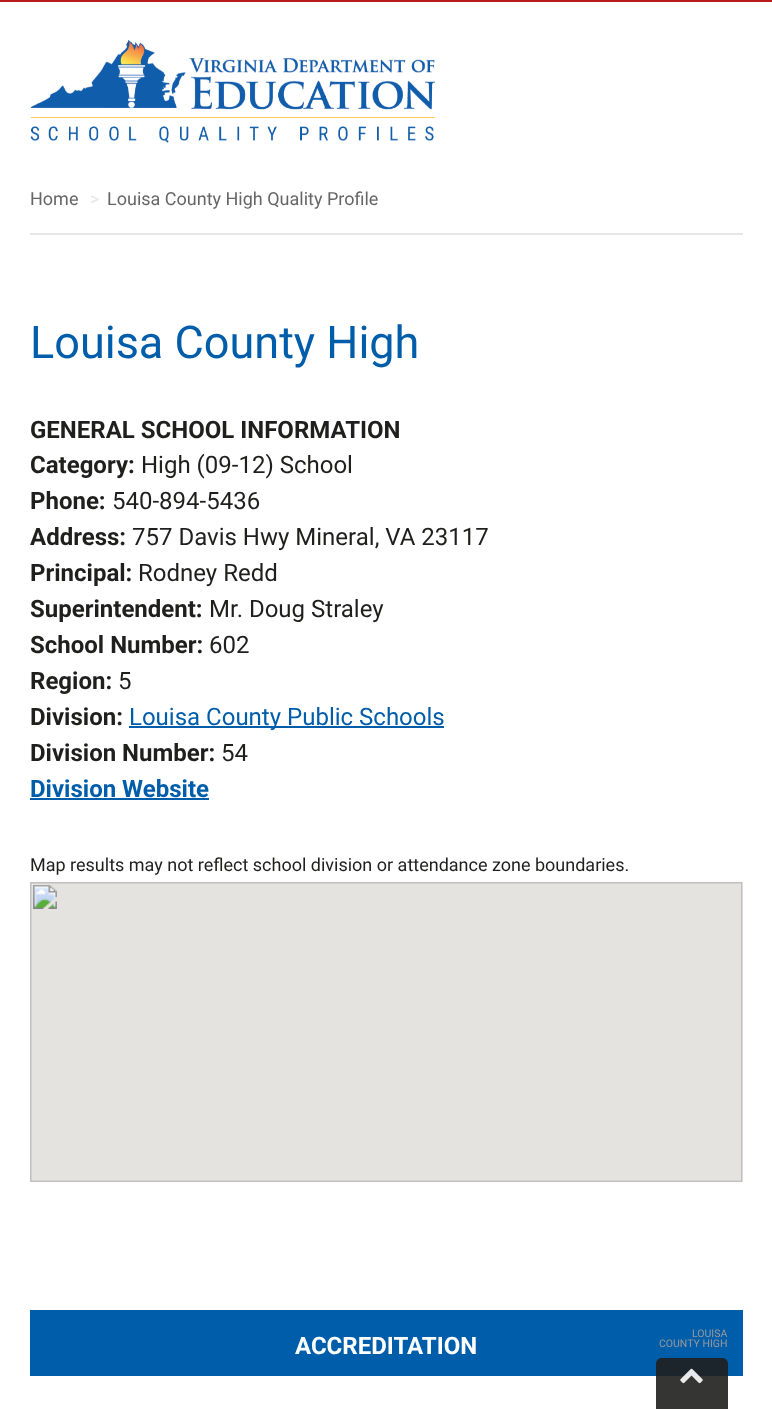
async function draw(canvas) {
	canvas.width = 772;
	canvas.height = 1409;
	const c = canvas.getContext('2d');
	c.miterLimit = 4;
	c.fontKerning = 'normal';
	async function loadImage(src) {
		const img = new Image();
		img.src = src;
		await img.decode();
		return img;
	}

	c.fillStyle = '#fff';
	c.fillRect(0, 0, 772, 1409);
	c.fillStyle = '#ba1a1a';
	c.fillRect(0, 0, 772, 2);
	c.drawImage(await loadImage('img1.png'), 30, 40, 405, 103);
	c.fillStyle = '#e7e7e7';
	c.fillRect(30, 233, 713, 2);
	c.font = '18px Roboto';
	c.fillStyle = '#666';
	c.fillText('Home', 30, 205);
	c.fillStyle = '#e7e7e7';
	c.fillText('>', 90, 205);
	c.fillStyle = '#666';
	c.fillText('Louisa County High Quality Profile', 107, 205);
	c.font = '45px Roboto';
	c.fillStyle = '#005daa';
	c.fillText('Louisa County High', 30, 358);
	c.font = 'bold 24px Roboto';
	c.fillStyle = '#1f1f1e';
	c.fillText('GENERAL SCHOOL INFORMATION', 30, 438);
	c.fillText('Category:', 30, 473);
	c.font = '24px Roboto';
	c.fillText('High (09-12) School', 141, 473);
	c.font = 'bold 24px Roboto';
	c.fillText('Phone:', 30, 509);
	c.font = '24px Roboto';
	c.fillText('540-894-5436', 112, 509);
	c.font = 'bold 24px Roboto';
	c.fillText('Address:', 30, 545);
	c.font = '24px Roboto';
	c.fillText('757 Davis Hwy Mineral, VA 23117', 132, 545);
	c.font = 'bold 24px Roboto';
	c.fillText('Principal:', 30, 581);
	c.font = '24px Roboto';
	c.fillText('Rodney Redd', 138, 581);
	c.font = 'bold 24px Roboto';
	c.fillText('Superintendent:', 30, 617);
	c.font = '24px Roboto';
	c.fillText('Mr. Doug Straley', 209, 617);
	c.font = 'bold 24px Roboto';
	c.fillText('School Number:', 30, 653);
	c.font = '24px Roboto';
	c.fillText('602', 209, 653);
	c.font = 'bold 24px Roboto';
	c.fillText('Region:', 30, 689);
	c.font = '24px Roboto';
	c.fillText('5', 118, 689);
	c.font = 'bold 24px Roboto';
	c.fillText('Division:', 30, 725);
	c.fillStyle = '#005daa';
	c.fillRect(129, 726, 315, 2);
	c.font = '24px Roboto';
	c.fillText('Louisa County Public Schools', 129, 725);
	c.font = 'bold 24px Roboto';
	c.fillStyle = '#1f1f1e';
	c.fillText('Division Number:', 30, 761);
	c.font = '24px Roboto';
	c.fillText('54', 221, 761);
	c.font = 'bold 24px Roboto';
	c.fillStyle = '#005daa';
	c.fillText('Division Website', 30, 797);
	c.fillRect(30, 798, 179, 2);
	c.font = '18px Roboto';
	c.fillStyle = '#1f1f1e';
	c.fillText('Map results may not reflect school division or attendance zone boundaries.', 30, 871);
	c.drawImage(await loadImage('img2.png'), 30, 882, 713, 300);
	c.fillStyle = '#005daa';
	c.fillRect(30, 1310, 713, 66);
	c.font = 'bold 24px Roboto';
	c.fillStyle = '#fff';
	c.fillText('ACCREDITATION', 295, 1354);
	c.font = '10.5px Roboto';
	c.fillStyle = '#999';
	c.fillText('LOUISA', 692, 1337);
	c.fillText('COUNTY HIGH', 659, 1347);
	c.fillStyle = '#1f1f1ee6';
	c.beginPath();
	c.moveTo(662, 1358);
	c.lineTo(722, 1358);
	c.bezierCurveTo(725.5, 1358, 728, 1360.5, 728, 1364);
	c.lineTo(728, 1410);
	c.lineTo(656, 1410);
	c.lineTo(656, 1364);
	c.bezierCurveTo(656, 1360.5, 658.5, 1358, 662, 1358);
	c.closePath();
	c.fill();
	c.drawImage(await loadImage('img3.png'), 680, 1368, 23, 16);
}

draw(document.querySelector('canvas'));
